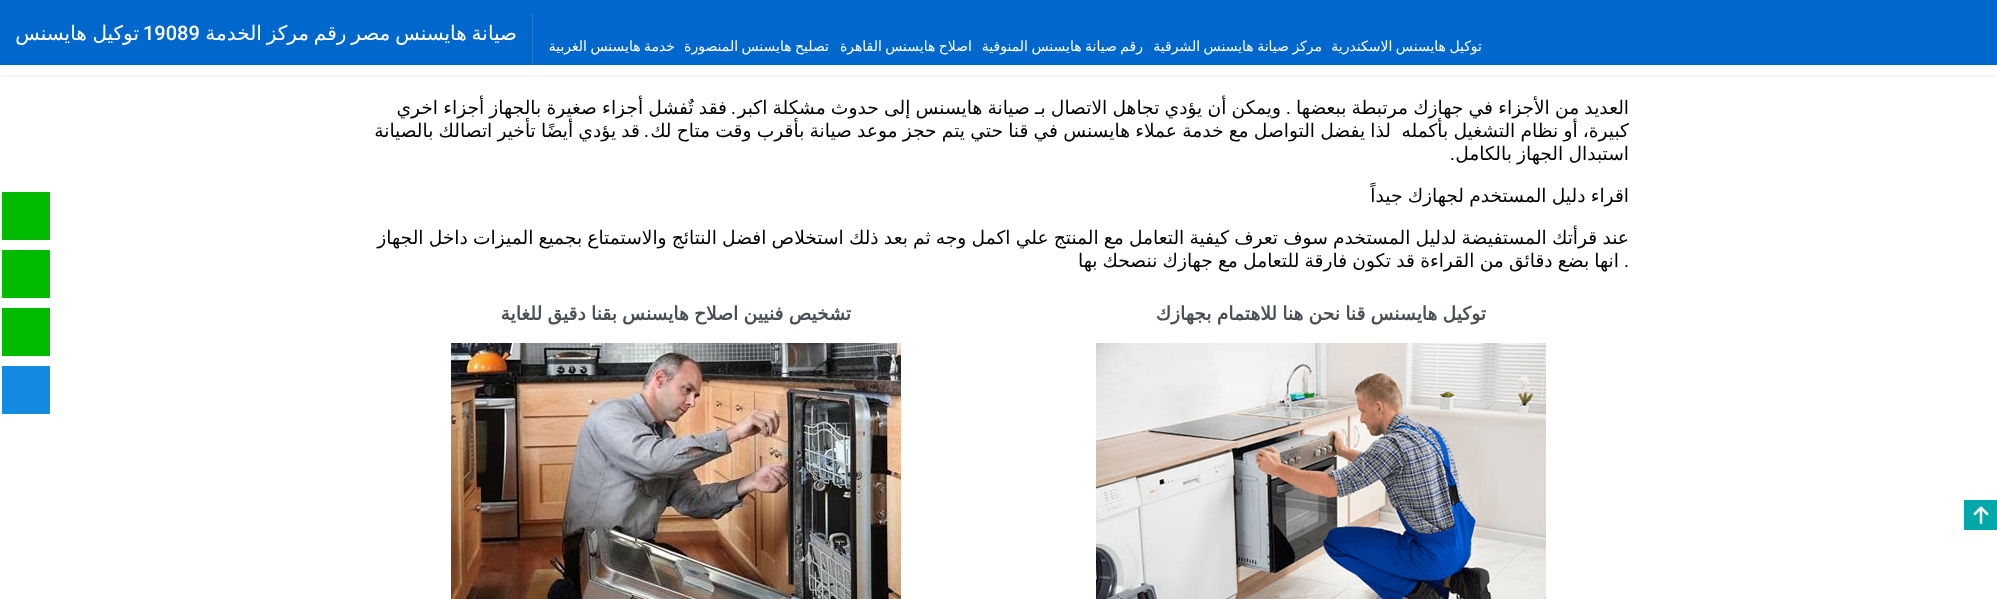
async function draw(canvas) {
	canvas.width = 1997;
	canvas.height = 599;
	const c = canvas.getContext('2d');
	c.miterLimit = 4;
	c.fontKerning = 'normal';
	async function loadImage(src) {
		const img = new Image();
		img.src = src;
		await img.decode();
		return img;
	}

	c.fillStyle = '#fff';
	c.fillRect(0, 0, 1997, 599);
	c.fillStyle = '#0000000a';
	c.filter = 'blur(1px)';
	c.beginPath();
	c.rect(0, 2, 1997, 75);
	c.fill();
	c.filter = 'none';
	c.fillStyle = '#0067cd';
	c.fillRect(0, 0, 1997, 65);
	c.wordSpacing = '-1.5px';
	c.direction = 'rtl';
	c.font = '20px DejaVu Sans';
	c.fillStyle = '#fff';
	c.fillText('صيانة هايسنس مصر رقم مركز الخدمة', 517, 40);
	c.wordSpacing = '0px';
	c.direction = 'ltr';
	c.font = '500 20px Roboto';
	c.fillText('19089', 143, 40);
	c.wordSpacing = '-0.75px';
	c.direction = 'rtl';
	c.font = '20px DejaVu Sans';
	c.fillText('توكيل هايسنس', 139, 40);
	c.fillStyle = '#267ed4';
	c.fillRect(532, 13, 1, 52);
	c.wordSpacing = '-1px';
	c.font = '14px DejaVu Sans';
	c.fillStyle = '#fff';
	for (const [text, x, y] of [
		['توكيل هايسنس الاسكندرية', 1482, 51],
		['مركز صيانة هايسنس الشرقية', 1322, 51],
		['رقم صيانة هايسنس المنوفية', 1143, 51],
		['اصلاح هايسنس القاهرة', 972, 51],
		['تصليح هايسنس المنصورة', 829, 51],
		['خدمة هايسنس الغربية', 675, 51],
	]) {
		c.fillText(text, x, y);
	}
	c.fillRect(0, 65, 1997, 10);
	c.wordSpacing = '-0.75px';
	c.font = '18.67px DejaVu Sans';
	c.fillStyle = '#000';
	c.fillText('العديد من الأجزاء في جهازك مرتبطة ببعضها', 1629, 114);
	c.fillText('ويمكن أن يؤدي تجاهل الاتصال بـ صيانة هايسنس إلى حدوث مشكلة اكبر', 1281, 114);
	c.wordSpacing = '0px';
	c.font = '18.67px Liberation Sans';
	c.fillText('.', 736, 114);
	c.wordSpacing = '-0.75px';
	c.font = '18.67px DejaVu Sans';
	c.fillText('فقد تٌفشل أجزاء صغيرة بالجهاز أجزاء اخري', 727, 114);
	c.wordSpacing = '0px';
	c.font = '18.67px Liberation Sans';
	c.fillText('.', 1291, 114);
	c.wordSpacing = '-0.75px';
	c.font = '18.67px DejaVu Sans';
	c.fillText('كبيرة، أو نظام التشغيل بأكمله', 1629, 137);
	c.fillText('لذا يفضل التواصل مع خدمة عملاء هايسنس في قنا حتي يتم حجز موعد صيانة بأقرب وقت متاح لك', 1391, 137);
	c.wordSpacing = '0px';
	c.font = '18.67px Liberation Sans';
	c.fillText('.', 649, 137);
	c.wordSpacing = '-0.75px';
	c.font = '18.67px DejaVu Sans';
	c.fillText('قد يؤدي أيضًا تأخير اتصالك بالصيانة', 640, 137);
	c.fillText('استبدال الجهاز بالكامل', 1629, 160);
	c.wordSpacing = '0px';
	c.font = '18.67px Liberation Sans';
	c.fillText('.', 1455, 160);
	c.wordSpacing = '-0.75px';
	c.font = '18.67px DejaVu Sans';
	for (const [text, x, y] of [
		['اقراء دليل المستخدم لجهازك جيداً', 1629, 202],
		['عند قرأتك المستفيضة لدليل المستخدم سوف تعرف كيفية التعامل مع المنتج علي اكمل وجه ثم بعد ذلك استخلاص افضل النتائج والاستمتاع بجميع الميزات داخل الجهاز', 1629, 244],
		['انها بضع دقائق من القراءة قد تكون فارقة للتعامل مع جهازك ننصحك بها', 1619, 267],
	]) {
		c.fillText(text, x, y);
	}
	c.wordSpacing = '0px';
	c.font = '18.67px Liberation Sans';
	c.fillText('.', 1629, 267);
	c.wordSpacing = '-0.75px';
	c.font = 'bold 18.67px DejaVu Sans';
	c.fillStyle = '#4a4f55';
	c.fillText('توكيل هايسنس قنا نحن هنا للاهتمام بجهازك', 1486, 320);
	c.drawImage(await loadImage('img1.png'), 1096, 343, 450, 256);
	c.fillText('تشخيص فنيين اصلاح هايسنس بقنا دقيق للغاية', 851, 320);
	c.drawImage(await loadImage('img2.png'), 451, 343, 450, 256);
	for (const [x, y, w, h, color] of [
		[2, 192, 48, 48, '#0b0'],
		[2, 250, 48, 48, '#0b0'],
		[2, 308, 48, 48, '#0b0'],
		[2, 366, 48, 48, '#128be0'],
	]) {
		c.fillStyle = color;
		c.fillRect(x, y, w, h);
	}
	c.fillStyle = '#00a8aa';
	c.beginPath();
	c.roundRect(1964, 500, 33, 30, [1, 0, 0, 0]);
	c.fill();
	c.drawImage(await loadImage('img3.png'), 1973, 506, 16, 18);
}

draw(document.querySelector('canvas'));
